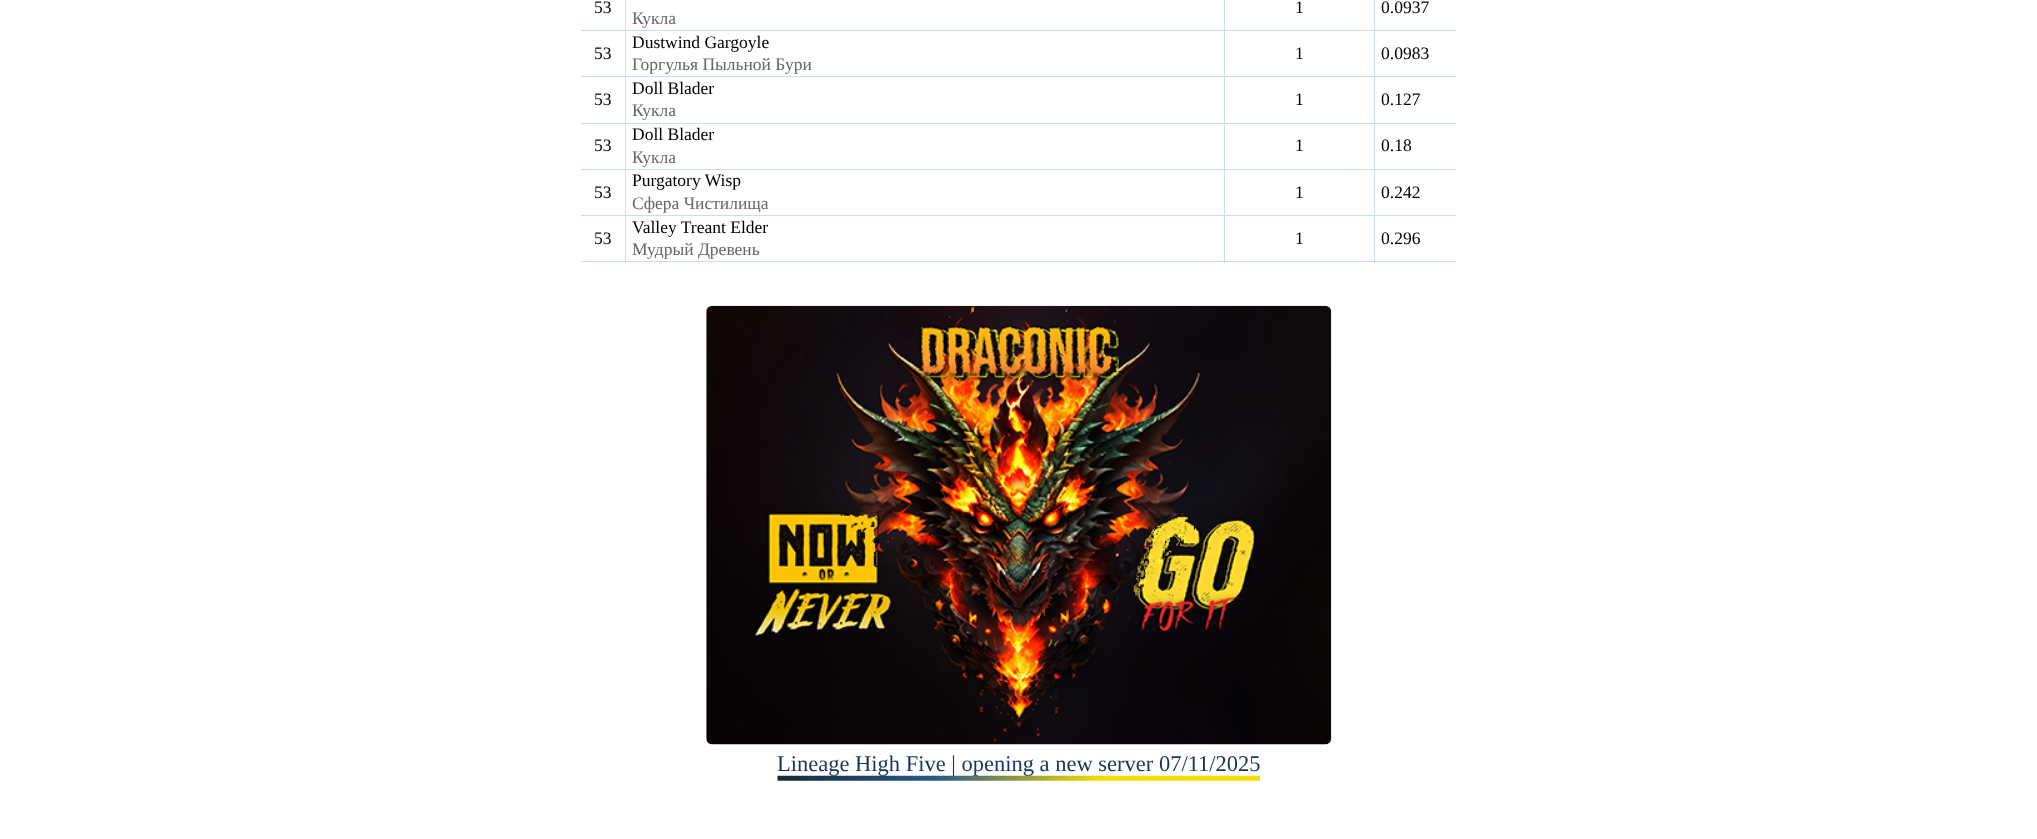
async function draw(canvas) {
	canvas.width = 2037;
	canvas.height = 839;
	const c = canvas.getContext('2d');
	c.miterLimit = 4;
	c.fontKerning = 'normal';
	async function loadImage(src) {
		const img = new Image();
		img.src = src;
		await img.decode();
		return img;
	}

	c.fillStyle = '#fff';
	c.fillRect(0, 0, 2037, 839);
	c.fillStyle = '#c7dbff';
	c.fillRect(625, 0, 1, 263);
	c.fillRect(581, 30, 45, 1);
	c.font = '17.5px Liberation Serif';
	c.fillStyle = '#000';
	c.fillText('53', 594, 13);
	c.fillStyle = '#c7dbff';
	c.fillRect(1374, 0, 1, 263);
	c.fillRect(1225, 30, 231, 1);
	c.fillStyle = '#000';
	c.fillText('1', 1295, 13);
	c.fillText('0.0937', 1381, 13);
	c.fillStyle = '#c7dbff';
	c.fillRect(1224, 0, 1, 263);
	c.fillRect(626, 30, 599, 1);
	c.fillStyle = '#666';
	c.fillText('Кукла', 632, 24);
	c.fillStyle = '#c7dbff';
	c.fillRect(581, 76, 875, 1);
	c.fillStyle = '#000';
	c.fillText('53', 594, 59);
	c.fillText('Dustwind Gargoyle', 632, 48);
	c.fillStyle = '#666';
	c.fillText('Горгулья Пыльной Бури', 632, 70);
	c.fillStyle = '#000';
	c.fillText('1', 1295, 59);
	c.fillText('0.0983', 1381, 59);
	c.fillStyle = '#c7dbff';
	c.fillRect(581, 123, 875, 1);
	c.fillStyle = '#000';
	c.fillText('53', 594, 105);
	c.fillText('Doll Blader', 632, 94);
	c.fillStyle = '#666';
	c.fillText('Кукла', 632, 116);
	c.fillStyle = '#000';
	c.fillText('1', 1295, 105);
	c.fillText('0.127', 1381, 105);
	c.fillStyle = '#c7dbff';
	c.fillRect(581, 169, 875, 1);
	c.fillStyle = '#000';
	c.fillText('53', 594, 151);
	c.fillText('Doll Blader', 632, 140);
	c.fillStyle = '#666';
	c.fillText('Кукла', 632, 163);
	c.fillStyle = '#000';
	c.fillText('1', 1295, 151);
	c.fillText('0.18', 1381, 151);
	c.fillStyle = '#c7dbff';
	c.fillRect(581, 215, 875, 1);
	c.fillStyle = '#000';
	c.fillText('53', 594, 198);
	c.fillText('Purgatory Wisp', 632, 186);
	c.fillStyle = '#666';
	c.fillText('Сфера Чистилища', 632, 209);
	c.fillStyle = '#000';
	c.fillText('1', 1295, 198);
	c.fillText('0.242', 1381, 198);
	c.fillStyle = '#c7dbff';
	c.fillRect(581, 261, 875, 1);
	c.fillStyle = '#000';
	c.fillText('53', 594, 244);
	c.fillText('Valley Treant Elder', 632, 233);
	c.fillStyle = '#666';
	c.fillText('Мудрый Древень', 632, 255);
	c.fillStyle = '#000';
	c.fillText('1', 1295, 244);
	c.fillText('0.296', 1381, 244);
	c.drawImage(await loadImage('img1.png'), 706, 305, 626, 440);
	c.drawImage(await loadImage('img2.png'), 777, 775, 483, 6);
	c.font = '22.5px Liberation Serif';
	c.fillStyle = '#16345e';
	c.fillText('Lineage High Five | opening a new server 07/11/2025', 777, 771);
}

draw(document.querySelector('canvas'));
